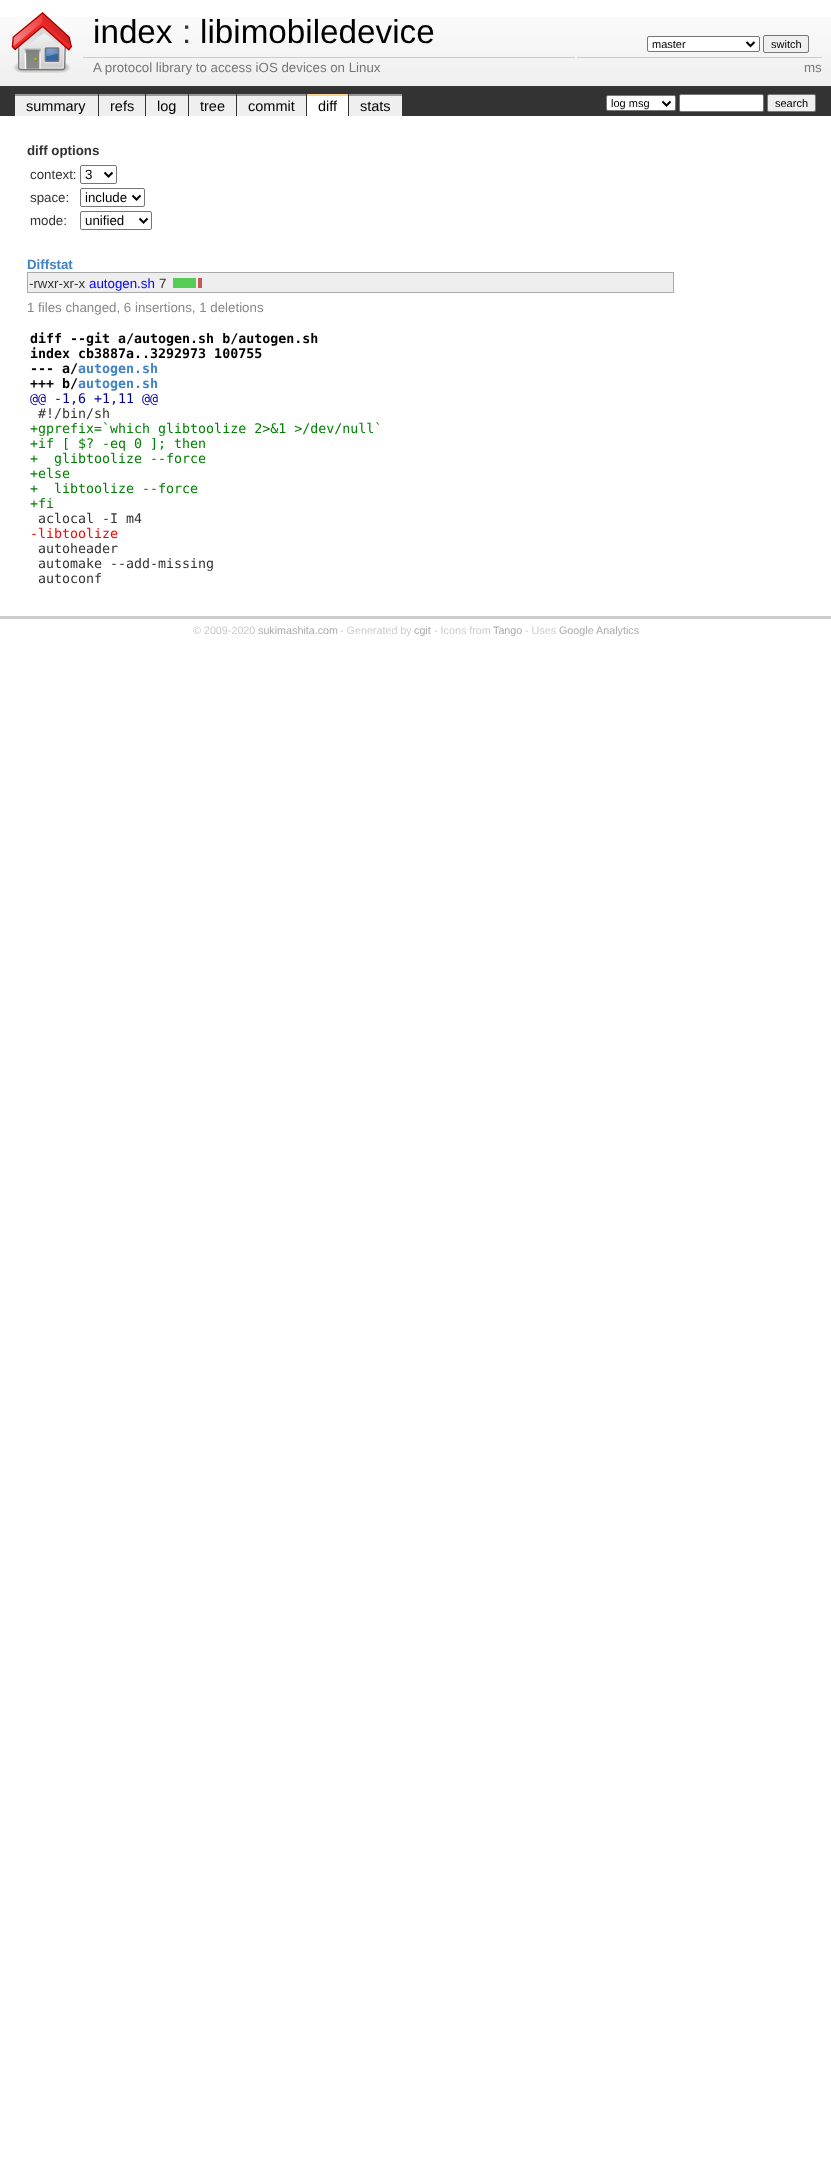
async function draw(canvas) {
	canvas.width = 831;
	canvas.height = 2178;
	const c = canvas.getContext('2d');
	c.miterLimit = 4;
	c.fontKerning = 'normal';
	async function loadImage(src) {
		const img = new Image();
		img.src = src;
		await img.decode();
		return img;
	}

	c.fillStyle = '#fff';
	c.fillRect(0, 0, 831, 2178);
	c.drawImage(await loadImage('img1.png'), 0, 17, 831, 69);
	c.drawImage(await loadImage('img2.png'), 11, 12, 61, 61);
	c.font = '33.25px Liberation Sans';
	c.fillStyle = '#000';
	c.fillText('index', 93, 43);
	c.fillStyle = '#333';
	c.fillText(':', 182, 43);
	c.fillStyle = '#000';
	c.fillText('libimobiledevice', 200, 43);
	c.fillStyle = '#fff';
	c.beginPath();
	c.roundRect(647.5, 36.5, 112, 15, 1.5);
	c.fill();
	c.strokeStyle = '#767676';
	c.stroke();
	c.beginPath();
	c.moveTo(746.5, 42);
	c.lineTo(750.5, 46);
	c.lineTo(754.5, 42);
	c.strokeStyle = '#000';
	c.lineWidth = 2;
	c.stroke();
	c.font = '11px Liberation Sans';
	c.fillStyle = '#000';
	c.fillText('master', 652, 48);
	c.fillStyle = '#efefef';
	c.beginPath();
	c.roundRect(763.5, 35.5, 45, 17, 1.5);
	c.fill();
	c.strokeStyle = '#767676';
	c.lineWidth = 1;
	c.stroke();
	c.fillStyle = '#000';
	c.fillText('switch', 771, 48);
	c.fillStyle = '#ccc';
	c.fillRect(83, 57, 492, 1);
	c.font = '13.3px Liberation Sans';
	c.fillStyle = '#777';
	c.fillText('A protocol library to access iOS devices on Linux', 93, 72);
	c.fillStyle = '#ccc';
	c.fillRect(577, 57, 245, 1);
	c.fillStyle = '#777';
	c.fillText('ms', 804, 72);
	c.fillStyle = '#333';
	c.fillRect(0, 86, 831, 30);
	c.fillStyle = '#efefef';
	c.fillRect(15, 96, 83, 20);
	c.font = '14.5px Liberation Sans';
	c.fillStyle = '#000';
	c.fillText('summary', 26, 111);
	c.fillStyle = '#999';
	c.fillRect(15, 94, 83, 2);
	c.fillStyle = '#efefef';
	c.fillRect(99, 96, 46, 20);
	c.fillStyle = '#000';
	c.fillText('refs', 110, 111);
	c.fillStyle = '#999';
	c.fillRect(99, 94, 46, 2);
	c.fillStyle = '#efefef';
	c.fillRect(146, 96, 42, 20);
	c.fillStyle = '#000';
	c.fillText('log', 157, 111);
	c.fillStyle = '#999';
	c.fillRect(146, 94, 42, 2);
	c.fillStyle = '#efefef';
	c.fillRect(189, 96, 47, 20);
	c.fillStyle = '#000';
	c.fillText('tree', 200, 111);
	c.fillStyle = '#999';
	c.fillRect(189, 94, 47, 2);
	c.fillStyle = '#efefef';
	c.fillRect(237, 96, 69, 20);
	c.fillStyle = '#000';
	c.fillText('commit', 248, 111);
	c.fillStyle = '#999';
	c.fillRect(237, 94, 69, 2);
	c.fillStyle = '#fff';
	c.fillRect(307, 96, 41, 20);
	c.fillStyle = '#000';
	c.fillText('diff', 318, 111);
	c.fillStyle = '#f6d28d';
	c.fillRect(307, 94, 41, 2);
	c.fillStyle = '#efefef';
	c.fillRect(349, 96, 53, 20);
	c.fillStyle = '#000';
	c.fillText('stats', 360, 111);
	c.fillStyle = '#999';
	c.fillRect(349, 94, 53, 2);
	c.fillStyle = '#fff';
	c.beginPath();
	c.roundRect(606.5, 95.5, 69, 15, 1.5);
	c.fill();
	c.stroke();
	c.beginPath();
	c.moveTo(662.5, 101.5);
	c.lineTo(666.5, 105.5);
	c.lineTo(670.5, 101.5);
	c.strokeStyle = '#000';
	c.lineWidth = 2;
	c.stroke();
	c.font = '11px Liberation Sans';
	c.fillStyle = '#000';
	c.fillText('log msg', 611, 107);
	c.fillStyle = '#fff';
	c.beginPath();
	c.roundRect(679.5, 94.5, 84, 17, 1.5);
	c.fill();
	c.strokeStyle = '#767676';
	c.lineWidth = 1;
	c.stroke();
	c.fillStyle = '#efefef';
	c.beginPath();
	c.roundRect(767.5, 94.5, 48, 17, 1.5);
	c.fill();
	c.stroke();
	c.fillStyle = '#000';
	c.fillText('search', 775, 107);
	c.fillStyle = '#ccc';
	c.fillRect(0, 616, 831, 3);
	c.font = 'bold 13.3px Liberation Sans';
	c.fillStyle = '#333';
	c.fillText('diff options', 27, 155);
	c.font = '13.3px Liberation Sans';
	c.fillText('context:', 30, 179);
	c.beginPath();
	c.roundRect(80.5, 165.5, 36, 18, 1.5);
	c.stroke();
	c.beginPath();
	c.moveTo(104.5, 172.5);
	c.lineTo(108.5, 176.5);
	c.lineTo(112.5, 172.5);
	c.strokeStyle = '#000';
	c.lineWidth = 2;
	c.stroke();
	c.fillStyle = '#000';
	c.fillText('3', 85, 179);
	c.fillStyle = '#333';
	c.fillText('space:', 30, 202);
	c.beginPath();
	c.roundRect(80.5, 188.5, 64, 18, 1.5);
	c.strokeStyle = '#767676';
	c.lineWidth = 1;
	c.stroke();
	c.beginPath();
	c.moveTo(132.5, 195.5);
	c.lineTo(136.5, 199.5);
	c.lineTo(140.5, 195.5);
	c.strokeStyle = '#000';
	c.lineWidth = 2;
	c.stroke();
	c.fillStyle = '#000';
	c.fillText('include', 85, 202);
	c.fillStyle = '#333';
	c.fillText('mode:', 30, 225);
	c.beginPath();
	c.roundRect(80.5, 211.5, 71, 18, 1.5);
	c.strokeStyle = '#767676';
	c.lineWidth = 1;
	c.stroke();
	c.beginPath();
	c.moveTo(139.5, 218.5);
	c.lineTo(143.5, 222.5);
	c.lineTo(147.5, 218.5);
	c.strokeStyle = '#000';
	c.lineWidth = 2;
	c.stroke();
	c.fillStyle = '#000';
	c.fillText('unified', 85, 225);
	c.font = 'bold 13.3px Liberation Sans';
	c.fillStyle = '#4183c4';
	c.fillText('Diffstat', 27, 269);
	for (const [x, y, w, h, color] of [
		[28, 273, 645, 19, '#eee'],
		[27, 272, 647, 1, '#aaa'],
		[673, 272, 1, 21, '#aaa'],
		[27, 292, 647, 1, '#aaa'],
		[27, 272, 1, 21, '#aaa'],
	]) {
		c.fillStyle = color;
		c.fillRect(x, y, w, h);
	}
	c.font = '13.3px Liberation Sans';
	c.fillStyle = '#333';
	c.fillText('-rwxr-xr-x', 29, 288);
	c.fillStyle = '#00f';
	c.fillText('autogen.sh', 89, 288);
	c.fillStyle = '#333';
	c.fillText('7', 159, 288);
	c.fillStyle = '#5c5';
	c.fillRect(173, 278, 23, 10);
	c.fillStyle = '#c55';
	c.fillRect(198, 278, 4, 10);
	c.fillStyle = '#888';
	c.fillText('1 files changed, 6 insertions, 1 deletions', 27, 312);
	c.font = 'bold 13.3px DejaVu Sans Mono';
	c.fillStyle = '#000';
	for (const [text, x, y] of [
		['diff --git a/autogen.sh b/autogen.sh', 30, 343],
		['index cb3887a..3292973 100755', 30, 358],
		['--- a/', 30, 373],
	]) {
		c.fillText(text, x, y);
	}
	c.fillStyle = '#4183c4';
	c.fillText('autogen.sh', 78, 373);
	c.fillStyle = '#000';
	c.fillText('+++ b/', 30, 388);
	c.fillStyle = '#4183c4';
	c.fillText('autogen.sh', 78, 388);
	c.font = '13.3px DejaVu Sans Mono';
	c.fillStyle = '#009';
	c.fillText('@@ -1,6 +1,11 @@', 30, 403);
	c.fillStyle = '#333';
	c.fillText('#!/bin/sh', 38, 418);
	c.fillStyle = '#008000';
	for (const [text, x, y] of [
		['+gprefix=`which glibtoolize 2>&1 >/dev/null`', 30, 433],
		['+if [ $? -eq 0 ]; then', 30, 448],
		['+  glibtoolize --force', 30, 463],
		['+else', 30, 478],
		['+  libtoolize --force', 30, 493],
		['+fi', 30, 508],
	]) {
		c.fillText(text, x, y);
	}
	c.fillStyle = '#333';
	c.fillText('aclocal -I m4', 38, 523);
	c.fillStyle = '#f00';
	c.fillText('-libtoolize', 30, 538);
	c.fillStyle = '#333';
	for (const [text, x, y] of [
		['autoheader', 38, 553],
		['automake --add-missing', 38, 568],
		['autoconf', 38, 583],
	]) {
		c.fillText(text, x, y);
	}
	c.font = '10.75px Liberation Sans';
	c.fillStyle = '#ccc';
	c.fillText('© 2009-2020', 193, 634);
	c.fillStyle = '#aaa';
	c.fillText('sukimashita.com', 258, 634);
	c.fillStyle = '#ccc';
	c.fillText('- Generated by', 340, 634);
	c.fillStyle = '#aaa';
	c.fillText('cgit', 414, 634);
	c.fillStyle = '#ccc';
	c.fillText('- Icons from', 434, 634);
	c.fillStyle = '#aaa';
	c.fillText('Tango', 493, 634);
	c.fillStyle = '#ccc';
	c.fillText('- Uses', 525, 634);
	c.fillStyle = '#aaa';
	c.fillText('Google Analytics', 559, 634);
}

draw(document.querySelector('canvas'));
